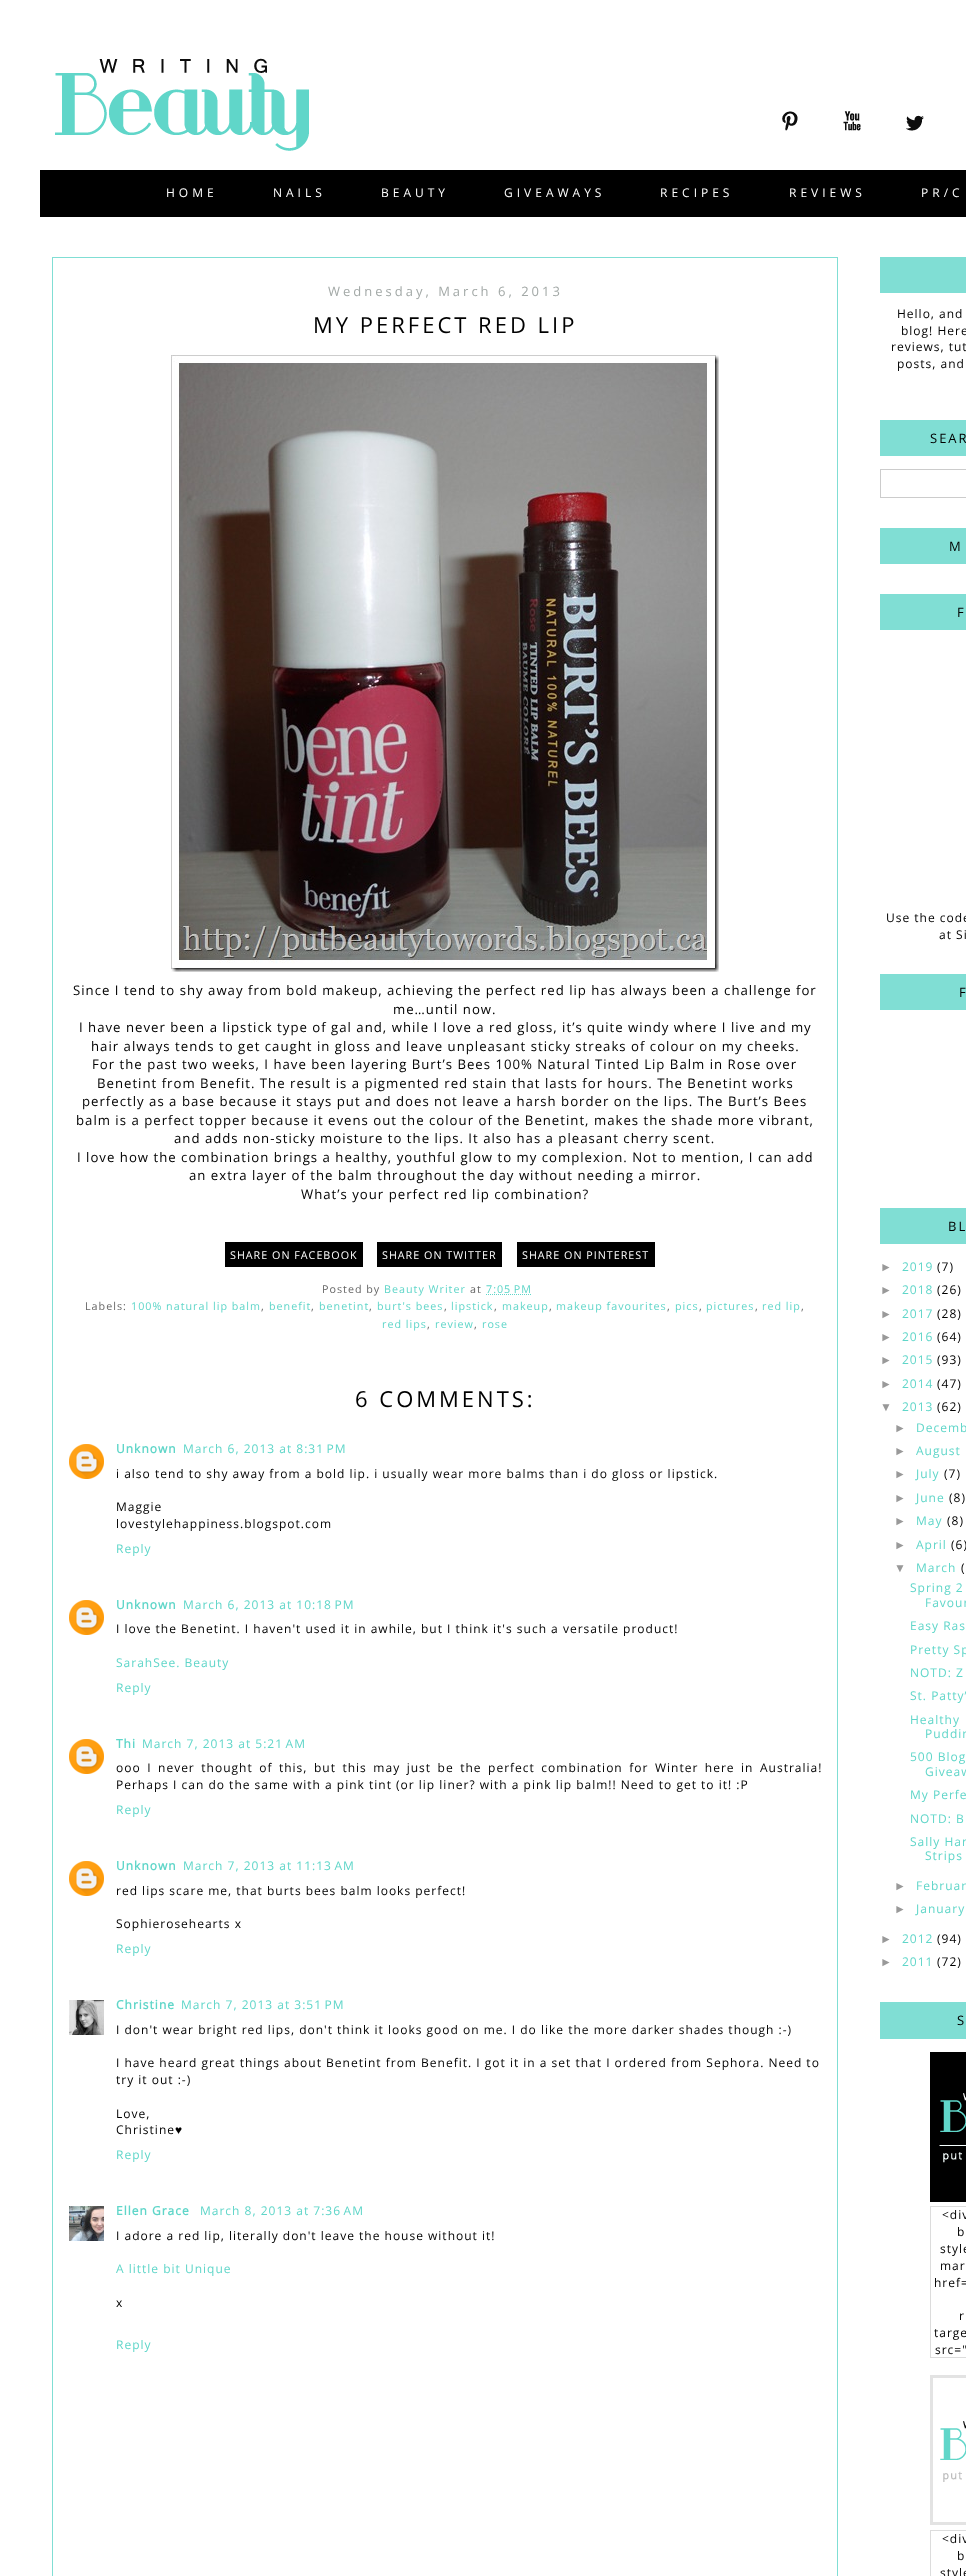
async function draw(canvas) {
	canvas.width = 966;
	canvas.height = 2576;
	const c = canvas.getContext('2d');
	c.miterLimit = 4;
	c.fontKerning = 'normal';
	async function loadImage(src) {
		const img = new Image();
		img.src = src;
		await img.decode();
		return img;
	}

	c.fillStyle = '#fff';
	c.fillRect(0, 0, 966, 2576);
	c.drawImage(await loadImage('img1.png'), 55, 58, 254, 93);
	c.drawImage(await loadImage('img2.png'), 782, 111, 16, 20);
	c.drawImage(await loadImage('img3.png'), 843, 111, 18, 20);
	c.drawImage(await loadImage('img4.png'), 906, 115, 18, 16);
	c.fillStyle = '#000';
	c.fillRect(40, 170, 926, 47);
	c.letterSpacing = '4px';
	c.font = '12px Open Sans';
	c.fillStyle = '#fff';
	for (const [text, x, y] of [
		['HOME', 166, 197],
		['NAILS', 273, 197],
		['BEAUTY', 381, 197],
		['GIVEAWAYS', 504, 197],
		['RECIPES', 660, 197],
		['REVIEWS', 789, 197],
		['PR/C', 921, 197],
	]) {
		c.fillText(text, x, y);
	}
	c.strokeStyle = '#80ded4';
	c.strokeRect(52.5, 257.5, 785, 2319);
	c.letterSpacing = '3px';
	c.font = '13px Open Sans';
	c.fillStyle = '#a3a9a7';
	c.fillText('Wednesday, March 6, 2013', 328, 296);
	c.font = '22px Open Sans';
	c.fillStyle = '#000';
	c.fillText('MY PERFECT RED LIP', 313, 333);
	c.drawImage(await loadImage('img5.png'), 171, 355, 548, 617);
	c.letterSpacing = '1px';
	c.font = '13.2px Open Sans';
	for (const [text, x, y] of [
		['Since I tend to shy away from bold makeup, achieving the perfect red lip has always been a challenge for', 73, 995],
		['me…until now.', 393, 1014],
		['I have never been a lipstick type of gal and, while I love a red gloss, it’s quite windy where I live and my', 79, 1032],
		['hair always tends to get caught in gloss and leave unpleasant sticky streaks of colour on my cheeks.', 91, 1051],
		['For the past two weeks, I have been layering Burt’s Bees 100% Natural Tinted Lip Balm in Rose over', 92, 1069],
		['Benetint from Benefit. The result is a pigmented red stain that lasts for hours. The Benetint works', 97, 1088],
		['perfectly as a base because it stays put and does not leave a harsh border on the lips. The Burt’s Bees', 82, 1106],
		['balm is a perfect topper because it evens out the colour of the Benetint, makes the shade more vibrant,', 76, 1125],
		['and adds non-sticky moisture to the lips. It also has a pleasant cherry scent.', 174, 1143],
		['I love how the combination brings a healthy, youthful glow to my complexion. Not to mention, I can add', 77, 1162],
		['an extra layer of the balm throughout the day without needing a mirror.', 189, 1180],
		['What’s your perfect red lip combination?', 301, 1199],
	]) {
		c.fillText(text, x, y);
	}
	c.fillRect(225, 1242, 138, 25);
	c.font = '10.75px Open Sans';
	c.fillStyle = '#fff';
	c.fillText('SHARE ON FACEBOOK', 230, 1259);
	c.fillStyle = '#000';
	c.fillRect(377, 1242, 125, 25);
	c.fillStyle = '#fff';
	c.fillText('SHARE ON TWITTER', 382, 1259);
	c.fillStyle = '#000';
	c.fillRect(517, 1242, 138, 25);
	c.fillStyle = '#fff';
	c.fillText('SHARE ON PINTEREST', 522, 1259);
	c.fillStyle = '#666';
	c.fillText('Posted by', 322, 1293);
	c.fillStyle = '#60d6c9';
	c.fillText('Beauty Writer', 384, 1293);
	c.fillStyle = '#666';
	c.fillText('at', 470, 1293);
	c.fillStyle = '#60d6c9';
	c.fillText('7:05 PM', 486, 1293);
	c.beginPath();
	c.moveTo(486, 1294.5);
	c.lineTo(532, 1294.5);
	c.strokeStyle = '#60d6c9';
	c.setLineDash([1, 1]);
	c.stroke();
	c.fillStyle = '#666';
	c.fillText('Labels:', 85, 1310);
	c.fillStyle = '#60d6c9';
	c.fillText('100% natural lip balm', 131, 1310);
	c.fillStyle = '#666';
	c.fillText(',', 261, 1310);
	c.fillStyle = '#60d6c9';
	c.fillText('benefit', 269, 1310);
	c.fillStyle = '#666';
	c.fillText(',', 311, 1310);
	c.fillStyle = '#60d6c9';
	c.fillText('benetint', 319, 1310);
	c.fillStyle = '#666';
	c.fillText(',', 369, 1310);
	c.fillStyle = '#60d6c9';
	c.fillText('burt\'s bees', 377, 1310);
	c.fillStyle = '#666';
	c.fillText(',', 444, 1310);
	c.fillStyle = '#60d6c9';
	c.fillText('lipstick', 451, 1310);
	c.fillStyle = '#666';
	c.fillText(',', 494, 1310);
	c.fillStyle = '#60d6c9';
	c.fillText('makeup', 502, 1310);
	c.fillStyle = '#666';
	c.fillText(',', 549, 1310);
	c.fillStyle = '#60d6c9';
	c.fillText('makeup favourites', 556, 1310);
	c.fillStyle = '#666';
	c.fillText(',', 667, 1310);
	c.fillStyle = '#60d6c9';
	c.fillText('pics', 675, 1310);
	c.fillStyle = '#666';
	c.fillText(',', 699, 1310);
	c.fillStyle = '#60d6c9';
	c.fillText('pictures', 706, 1310);
	c.fillStyle = '#666';
	c.fillText(',', 755, 1310);
	c.fillStyle = '#60d6c9';
	c.fillText('red lip', 762, 1310);
	c.fillStyle = '#666';
	c.fillText(',', 801, 1310);
	c.fillStyle = '#60d6c9';
	c.fillText('red lips', 382, 1328);
	c.fillStyle = '#666';
	c.fillText(',', 427, 1328);
	c.fillStyle = '#60d6c9';
	c.fillText('review', 435, 1328);
	c.fillStyle = '#666';
	c.fillText(',', 474, 1328);
	c.fillStyle = '#60d6c9';
	c.fillText('rose', 482, 1328);
	c.letterSpacing = '3px';
	c.font = '22px Open Sans';
	c.fillStyle = '#000';
	c.fillText('6 COMMENTS:', 355, 1407);
	c.drawImage(await loadImage('img6.png'), 69, 1444, 35, 35);
	c.letterSpacing = '1px';
	c.font = 'bold 12px Open Sans';
	c.fillStyle = '#60d6c9';
	c.fillText('Unknown', 116, 1453);
	c.font = '12px Open Sans';
	c.fillText('March 6, 2013 at 8:31 PM', 183, 1453);
	c.fillStyle = '#000';
	for (const [text, x, y] of [
		['i also tend to shy away from a bold lip. i usually wear more balms than i do gloss or lipstick.', 116, 1478],
		['Maggie', 116, 1511],
		['lovestylehappiness.blogspot.com', 116, 1528],
	]) {
		c.fillText(text, x, y);
	}
	c.fillStyle = '#60d6c9';
	c.fillText('Reply', 116, 1553);
	c.drawImage(await loadImage('img6.png'), 69, 1600, 35, 35);
	c.font = 'bold 12px Open Sans';
	c.fillText('Unknown', 116, 1609);
	c.font = '12px Open Sans';
	c.fillText('March 6, 2013 at 10:18 PM', 183, 1609);
	c.fillStyle = '#000';
	c.fillText('I love the Benetint. I haven\'t used it in awhile, but I think it\'s such a versatile product!', 116, 1633);
	c.fillStyle = '#60d6c9';
	c.fillText('SarahSee. Beauty', 116, 1667);
	c.fillText('Reply', 116, 1692);
	c.drawImage(await loadImage('img6.png'), 69, 1739, 35, 35);
	c.font = 'bold 12px Open Sans';
	c.fillText('Thi', 116, 1748);
	c.font = '12px Open Sans';
	c.fillText('March 7, 2013 at 5:21 AM', 142, 1748);
	c.wordSpacing = '2.4px';
	c.fillStyle = '#000';
	c.fillText('ooo I never thought of this, but this may just be the perfect combination for Winter here in Australia!', 116, 1772);
	c.wordSpacing = '0px';
	c.fillText('Perhaps I can do the same with a pink tint (or lip liner? with a pink lip balm!! Need to get to it! :P', 116, 1789);
	c.fillStyle = '#60d6c9';
	c.fillText('Reply', 116, 1814);
	c.drawImage(await loadImage('img6.png'), 69, 1861, 35, 35);
	c.font = 'bold 12px Open Sans';
	c.fillText('Unknown', 116, 1870);
	c.font = '12px Open Sans';
	c.fillText('March 7, 2013 at 11:13 AM', 183, 1870);
	c.fillStyle = '#000';
	c.fillText('red lips scare me, that burts bees balm looks perfect!', 116, 1895);
	c.fillText('Sophierosehearts x', 116, 1928);
	c.fillStyle = '#60d6c9';
	c.fillText('Reply', 116, 1953);
	c.drawImage(await loadImage('img7.png'), 69, 2000, 35, 35);
	c.font = 'bold 12px Open Sans';
	c.fillText('Christine', 116, 2009);
	c.font = '12px Open Sans';
	c.fillText('March 7, 2013 at 3:51 PM', 181, 2009);
	c.fillStyle = '#000';
	for (const [text, x, y] of [
		['I don\'t wear bright red lips, don\'t think it looks good on me. I do like the more darker shades though :-)', 116, 2034],
		['I have heard great things about Benetint from Benefit. I got it in a set that I ordered from Sephora. Need to', 116, 2067],
		['try it out :-)', 116, 2084],
		['Love,', 116, 2118],
		['Christine', 116, 2134],
	]) {
		c.fillText(text, x, y);
	}
	c.font = '12px Liberation Serif';
	c.fillText('♥', 175, 2134);
	c.font = '12px Open Sans';
	c.fillStyle = '#60d6c9';
	c.fillText('Reply', 116, 2159);
	c.drawImage(await loadImage('img8.png'), 69, 2206, 35, 35);
	c.font = 'bold 12px Open Sans';
	c.fillText('Ellen Grace', 116, 2215);
	c.font = '12px Open Sans';
	c.fillText('March 8, 2013 at 7:36 AM', 200, 2215);
	c.fillStyle = '#000';
	c.fillText('I adore a red lip, literally don\'t leave the house without it!', 116, 2240);
	c.fillStyle = '#60d6c9';
	c.fillText('A little bit Unique', 116, 2273);
	c.fillStyle = '#000';
	c.fillText('x', 116, 2307);
	c.fillStyle = '#60d6c9';
	c.fillText('Reply', 116, 2349);
	c.fillStyle = '#80ded4';
	c.fillRect(880, 257, 86, 36);
	c.fillStyle = '#000';
	for (const [text, x, y] of [
		['Hello, and', 897, 318],
		['blog! Here', 901, 335],
		['reviews, tut', 891, 351],
		['posts, and', 897, 368],
	]) {
		c.fillText(text, x, y);
	}
	c.fillStyle = '#80ded4';
	c.fillRect(880, 420, 86, 36);
	c.letterSpacing = '2px';
	c.font = '13px Open Sans';
	c.fillStyle = '#000';
	c.fillText('SEAR', 930, 443);
	c.strokeStyle = '#ccc';
	c.setLineDash([]);
	c.strokeRect(880.5, 469.5, 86, 28);
	c.fillStyle = '#80ded4';
	c.fillRect(880, 528, 86, 36);
	c.fillStyle = '#000';
	c.fillText('M', 949, 551);
	c.fillStyle = '#80ded4';
	c.fillRect(880, 594, 86, 36);
	c.fillStyle = '#000';
	c.fillText('F', 957, 617);
	c.letterSpacing = '1px';
	c.font = '12px Open Sans';
	c.fillText('Use the code', 886, 922);
	c.fillText('at Si', 939, 939);
	c.fillStyle = '#80ded4';
	c.fillRect(880, 974, 86, 36);
	c.letterSpacing = '2px';
	c.font = '13px Open Sans';
	c.fillStyle = '#000';
	c.fillText('F', 959, 997);
	c.fillStyle = '#80ded4';
	c.fillRect(880, 1208, 86, 36);
	c.fillStyle = '#000';
	c.fillText('BL', 948, 1231);
	c.letterSpacing = '1px';
	c.font = '12px Liberation Sans';
	c.fillStyle = '#999';
	c.fillText('►', 880, 1271);
	c.font = '12px Open Sans';
	c.fillStyle = '#60d6c9';
	c.fillText('2019', 902, 1271);
	c.fillStyle = '#000';
	c.fillText('(7)', 937, 1271);
	c.font = '12px Liberation Sans';
	c.fillStyle = '#999';
	c.fillText('►', 880, 1294);
	c.font = '12px Open Sans';
	c.fillStyle = '#60d6c9';
	c.fillText('2018', 902, 1294);
	c.fillStyle = '#000';
	c.fillText('(26)', 937, 1294);
	c.font = '12px Liberation Sans';
	c.fillStyle = '#999';
	c.fillText('►', 880, 1318);
	c.font = '12px Open Sans';
	c.fillStyle = '#60d6c9';
	c.fillText('2017', 902, 1318);
	c.fillStyle = '#000';
	c.fillText('(28)', 937, 1318);
	c.font = '12px Liberation Sans';
	c.fillStyle = '#999';
	c.fillText('►', 880, 1341);
	c.font = '12px Open Sans';
	c.fillStyle = '#60d6c9';
	c.fillText('2016', 902, 1341);
	c.fillStyle = '#000';
	c.fillText('(64)', 937, 1341);
	c.font = '12px Liberation Sans';
	c.fillStyle = '#999';
	c.fillText('►', 880, 1364);
	c.font = '12px Open Sans';
	c.fillStyle = '#60d6c9';
	c.fillText('2015', 902, 1364);
	c.fillStyle = '#000';
	c.fillText('(93)', 937, 1364);
	c.font = '12px Liberation Sans';
	c.fillStyle = '#999';
	c.fillText('►', 880, 1388);
	c.font = '12px Open Sans';
	c.fillStyle = '#60d6c9';
	c.fillText('2014', 902, 1388);
	c.fillStyle = '#000';
	c.fillText('(47)', 937, 1388);
	c.font = '12px Liberation Sans';
	c.fillStyle = '#999';
	c.fillText('▼', 880, 1411);
	c.font = '12px Open Sans';
	c.fillStyle = '#60d6c9';
	c.fillText('2013', 902, 1411);
	c.fillStyle = '#000';
	c.fillText('(62)', 937, 1411);
	c.font = '12px Liberation Sans';
	c.fillStyle = '#999';
	c.fillText('►', 894, 1432);
	c.font = '12px Open Sans';
	c.fillStyle = '#60d6c9';
	c.fillText('Decemb', 916, 1432);
	c.font = '12px Liberation Sans';
	c.fillStyle = '#999';
	c.fillText('►', 894, 1455);
	c.font = '12px Open Sans';
	c.fillStyle = '#60d6c9';
	c.fillText('August', 916, 1455);
	c.font = '12px Liberation Sans';
	c.fillStyle = '#999';
	c.fillText('►', 894, 1478);
	c.font = '12px Open Sans';
	c.fillStyle = '#60d6c9';
	c.fillText('July', 916, 1478);
	c.fillStyle = '#000';
	c.fillText('(7)', 944, 1478);
	c.font = '12px Liberation Sans';
	c.fillStyle = '#999';
	c.fillText('►', 894, 1502);
	c.font = '12px Open Sans';
	c.fillStyle = '#60d6c9';
	c.fillText('June', 916, 1502);
	c.fillStyle = '#000';
	c.fillText('(8)', 949, 1502);
	c.font = '12px Liberation Sans';
	c.fillStyle = '#999';
	c.fillText('►', 894, 1525);
	c.font = '12px Open Sans';
	c.fillStyle = '#60d6c9';
	c.fillText('May', 916, 1525);
	c.fillStyle = '#000';
	c.fillText('(8)', 947, 1525);
	c.font = '12px Liberation Sans';
	c.fillStyle = '#999';
	c.fillText('►', 894, 1549);
	c.font = '12px Open Sans';
	c.fillStyle = '#60d6c9';
	c.fillText('April', 916, 1549);
	c.fillStyle = '#000';
	c.fillText('(6)', 951, 1549);
	c.font = '12px Liberation Sans';
	c.fillStyle = '#999';
	c.fillText('▼', 894, 1572);
	c.font = '12px Open Sans';
	c.fillStyle = '#60d6c9';
	c.fillText('March', 916, 1572);
	c.fillStyle = '#000';
	c.fillText('(', 961, 1572);
	c.fillStyle = '#60d6c9';
	for (const [text, x, y] of [
		['Spring 2', 910, 1592],
		['Favour', 925, 1607],
		['Easy Ras', 910, 1630],
		['Pretty Sp', 910, 1654],
		['NOTD: Z', 910, 1677],
		['St. Patty’', 910, 1700],
		['Healthy', 910, 1724],
		['Puddin', 925, 1738],
		['500 Blog', 910, 1761],
		['Giveaw', 925, 1776],
		['My Perfe', 910, 1799],
		['NOTD: B', 910, 1823],
		['Sally Han', 910, 1846],
		['Strips', 925, 1860],
	]) {
		c.fillText(text, x, y);
	}
	c.font = '12px Liberation Sans';
	c.fillStyle = '#999';
	c.fillText('►', 894, 1890);
	c.font = '12px Open Sans';
	c.fillStyle = '#60d6c9';
	c.fillText('Februar', 916, 1890);
	c.font = '12px Liberation Sans';
	c.fillStyle = '#999';
	c.fillText('►', 894, 1913);
	c.font = '12px Open Sans';
	c.fillStyle = '#60d6c9';
	c.fillText('January', 916, 1913);
	c.font = '12px Liberation Sans';
	c.fillStyle = '#999';
	c.fillText('►', 880, 1943);
	c.font = '12px Open Sans';
	c.fillStyle = '#60d6c9';
	c.fillText('2012', 902, 1943);
	c.fillStyle = '#000';
	c.fillText('(94)', 937, 1943);
	c.font = '12px Liberation Sans';
	c.fillStyle = '#999';
	c.fillText('►', 880, 1966);
	c.font = '12px Open Sans';
	c.fillStyle = '#60d6c9';
	c.fillText('2011', 902, 1966);
	c.fillStyle = '#000';
	c.fillText('(72)', 937, 1966);
	c.fillStyle = '#80ded4';
	c.fillRect(880, 2002, 86, 37);
	c.letterSpacing = '2px';
	c.font = '13px Open Sans';
	c.fillStyle = '#000';
	c.fillText('S', 957, 2025);
	c.drawImage(await loadImage('img9.png'), 930, 2052, 36, 150);
	c.strokeStyle = '#dcdcdc';
	c.strokeRect(930.5, 2206.5, 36, 151);
	c.letterSpacing = '1px';
	c.font = '12px Open Sans';
	for (const [text, x, y] of [
		['<div', 942, 2219],
		['b', 957, 2236],
		['style', 940, 2253],
		['mar', 940, 2270],
		['href=', 934, 2287],
		['r', 959, 2320],
		['targe', 934, 2337],
		['src="', 935, 2354],
	]) {
		c.fillText(text, x, y);
	}
	c.drawImage(await loadImage('img10.png'), 930, 2375, 36, 150);
	c.strokeRect(930.5, 2530.5, 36, 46);
	for (const [text, x, y] of [
		['<div', 942, 2543],
		['b', 957, 2560],
		['style', 940, 2577],
	]) {
		c.fillText(text, x, y);
	}
}

draw(document.querySelector('canvas'));
